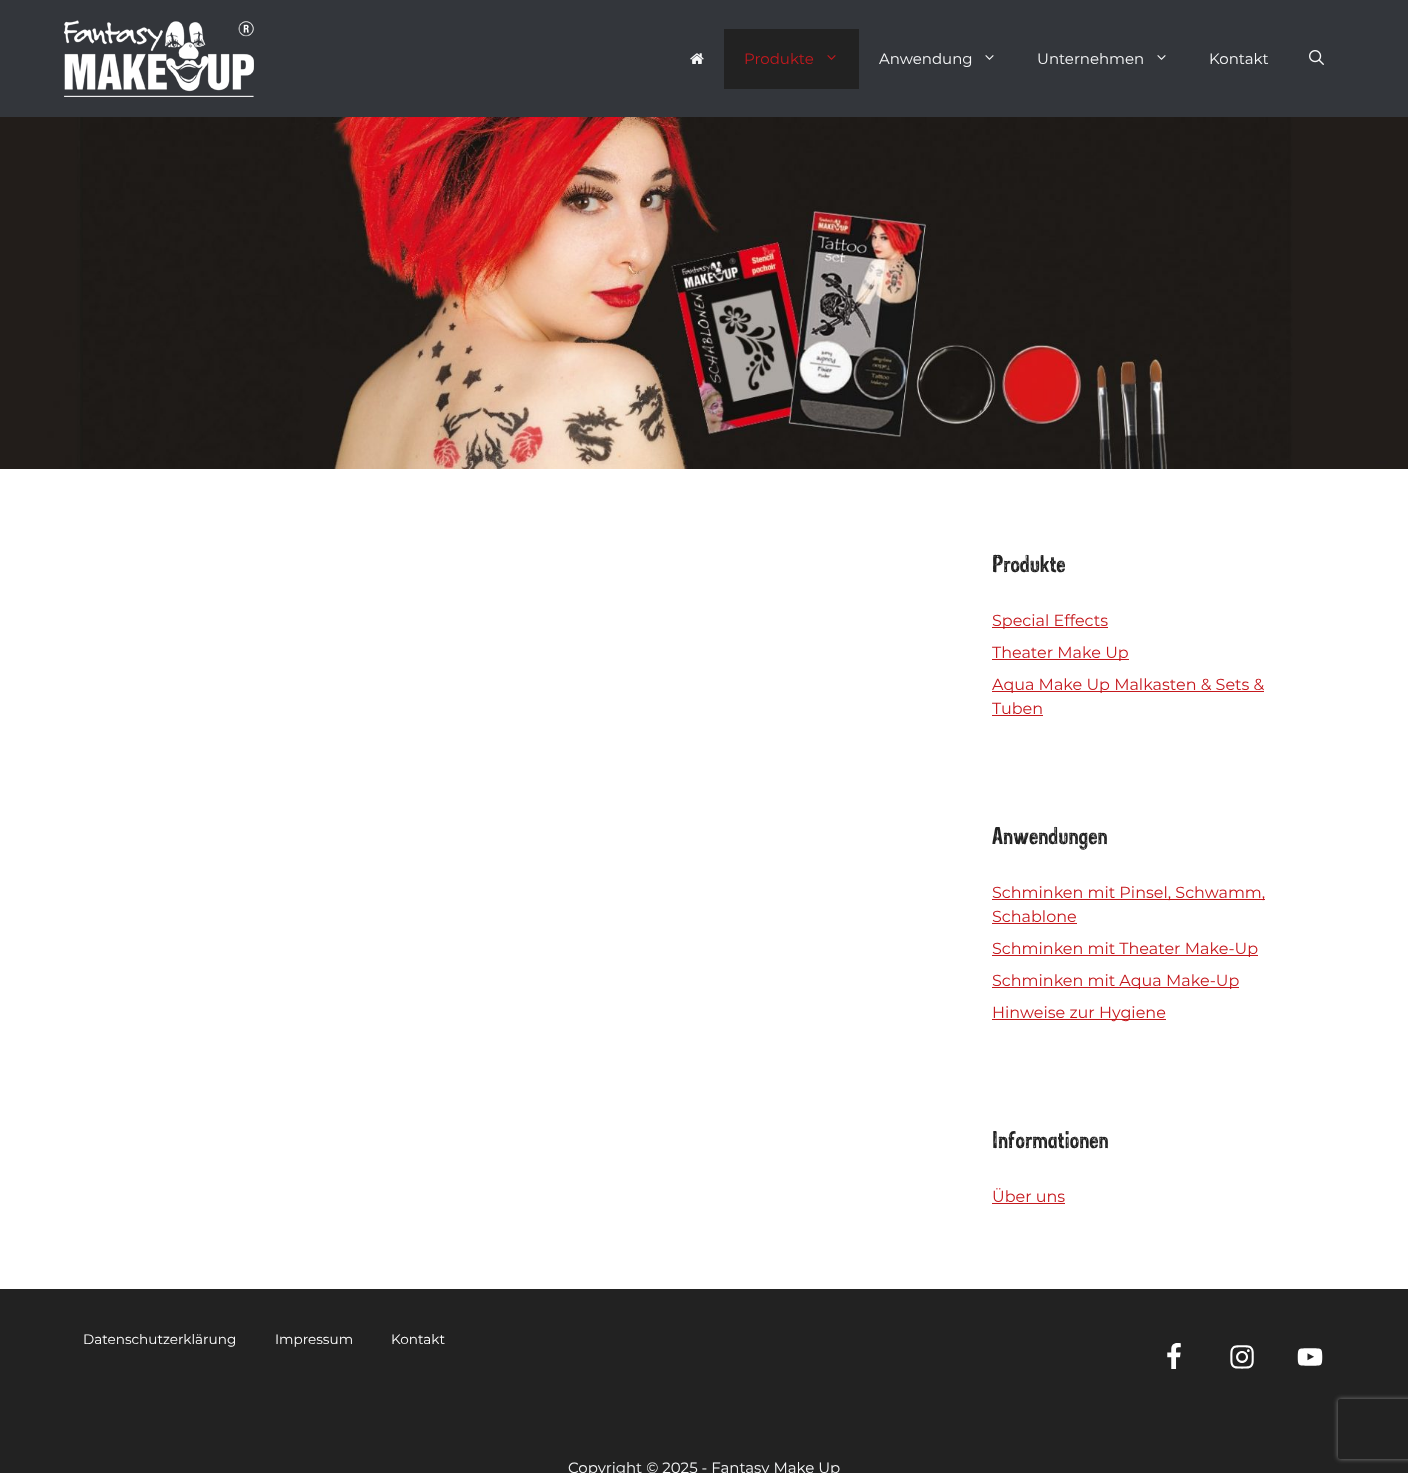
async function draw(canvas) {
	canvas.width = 1408;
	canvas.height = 1473;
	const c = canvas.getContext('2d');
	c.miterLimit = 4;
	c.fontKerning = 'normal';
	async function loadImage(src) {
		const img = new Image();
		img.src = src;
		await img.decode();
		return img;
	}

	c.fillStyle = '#fff';
	c.fillRect(0, 0, 1408, 1473);
	c.fillStyle = '#33363b';
	c.fillRect(0, 0, 1408, 117);
	c.drawImage(await loadImage('img1.png'), 64, 20, 190, 77);
	c.drawImage(await loadImage('img2.png'), 690, 53, 14, 11);
	c.fillStyle = '#222';
	c.fillRect(724, 29, 135, 60);
	c.font = '15px Montserrat';
	c.fillStyle = '#c5191e';
	c.fillText('Produkte', 744, 64);
	c.drawImage(await loadImage('img3.png'), 827, 55, 9, 5);
	c.fillStyle = '#f7f8f9';
	c.fillText('Anwendung', 879, 64);
	c.drawImage(await loadImage('img4.png'), 985, 55, 9, 5);
	c.fillText('Unternehmen', 1037, 64);
	c.drawImage(await loadImage('img4.png'), 1157, 55, 9, 5);
	c.fillText('Kontakt', 1209, 64);
	c.drawImage(await loadImage('img5.png'), 1309, 50, 15, 15);
	c.drawImage(await loadImage('img6.png'), 0, 117, 1408, 352);
	c.font = '42px Liberation Serif';
	c.fillStyle = '#222';
	c.fillText('￼', 84, 552);
	c.font = '20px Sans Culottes';
	c.fillText('Produkte', 992, 572);
	c.fillStyle = '#c5191e';
	c.fillRect(992, 627, 116, 1);
	c.font = '16px Montserrat';
	c.fillText('Special Effects', 992, 626);
	c.fillRect(992, 659, 137, 1);
	c.fillText('Theater Make Up', 992, 658);
	c.fillRect(992, 691, 272, 1);
	c.fillText('Aqua Make Up Malkasten & Sets &', 992, 690);
	c.fillText('Tuben', 992, 714);
	c.fillRect(992, 715, 51, 1);
	c.font = '20px Sans Culottes';
	c.fillStyle = '#222';
	c.fillText('Anwendungen', 992, 844);
	c.fillStyle = '#c5191e';
	c.fillRect(992, 899, 273, 1);
	c.font = '16px Montserrat';
	c.fillText('Schminken mit Pinsel, Schwamm,', 992, 898);
	c.fillText('Schablone', 992, 922);
	c.fillRect(992, 923, 85, 1);
	c.fillRect(992, 955, 266, 1);
	c.fillText('Schminken mit Theater Make-Up', 992, 954);
	c.fillRect(992, 987, 247, 1);
	c.fillText('Schminken mit Aqua Make-Up', 992, 986);
	c.fillRect(992, 1019, 174, 1);
	c.fillText('Hinweise zur Hygiene', 992, 1018);
	c.font = '20px Sans Culottes';
	c.fillStyle = '#222';
	c.fillText('Informationen', 992, 1148);
	c.font = '16px Montserrat';
	c.fillStyle = '#c5191e';
	c.fillText('Über uns', 992, 1202);
	c.fillRect(992, 1203, 73, 1);
	c.fillStyle = '#222';
	c.fillRect(0, 1289, 1408, 184);
	c.font = '13.6px Montserrat';
	c.fillStyle = '#fff';
	for (const [text, x, y] of [
		['Datenschutzerklärung', 83, 1344],
		['Impressum', 275, 1344],
		['Kontakt', 391, 1344],
	]) {
		c.fillText(text, x, y);
	}
	c.drawImage(await loadImage('img7.png'), 1167, 1343, 14, 26);
	c.drawImage(await loadImage('img8.png'), 1230, 1345, 24, 24);
	c.drawImage(await loadImage('img9.png'), 1297, 1348, 26, 18);
	c.font = '15px Montserrat';
	c.fillStyle = '#f7f8f9';
	c.fillText('Copyright © 2025 - Fantasy Make Up', 568, 1473);
	c.save();
	c.beginPath();
	c.moveTo(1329, 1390);
	c.lineTo(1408, 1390);
	c.lineTo(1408, 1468);
	c.lineTo(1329, 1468);
	c.closePath();
	c.moveTo(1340, 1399);
	c.lineTo(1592, 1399);
	c.bezierCurveTo(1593, 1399, 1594, 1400, 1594, 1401);
	c.lineTo(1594, 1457);
	c.bezierCurveTo(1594, 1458, 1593, 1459, 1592, 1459);
	c.lineTo(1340, 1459);
	c.bezierCurveTo(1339, 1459, 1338, 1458, 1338, 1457);
	c.lineTo(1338, 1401);
	c.bezierCurveTo(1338, 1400, 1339, 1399, 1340, 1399);
	c.closePath();
	c.clip('evenodd');
	c.fillStyle = '#808080';
	c.filter = 'blur(2.5px)';
	c.beginPath();
	c.roundRect(1338, 1399, 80, 60, 2);
	c.fill();
	c.filter = 'none';
	c.restore();
}

draw(document.querySelector('canvas'));
